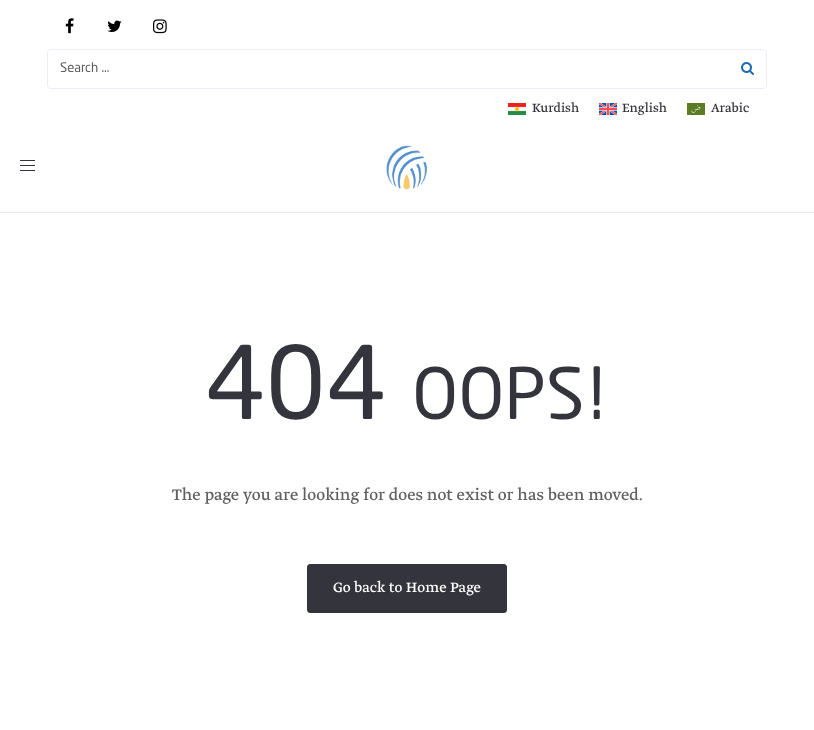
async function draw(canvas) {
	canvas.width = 814;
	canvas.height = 730;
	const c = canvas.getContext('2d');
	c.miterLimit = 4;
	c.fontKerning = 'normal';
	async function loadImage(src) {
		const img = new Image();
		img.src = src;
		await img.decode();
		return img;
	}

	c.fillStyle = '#fff';
	c.fillRect(0, 0, 814, 730);
	c.fillStyle = '#e8e8ec';
	c.fillRect(0, 212, 814, 1);
	c.drawImage(await loadImage('img1.png'), 65, 18, 9, 16);
	c.drawImage(await loadImage('img2.png'), 107, 20, 15, 12);
	c.drawImage(await loadImage('img3.png'), 153, 19, 14, 15);
	c.beginPath();
	c.roundRect(47.5, 49.5, 682, 39, [3.5, 0, 0, 3.5]);
	c.strokeStyle = '#ebeef6';
	c.stroke();
	c.font = '13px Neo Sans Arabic';
	c.fillStyle = '#606060';
	c.fillText('Search …', 60, 72);
	c.fillStyle = '#fff';
	c.beginPath();
	c.roundRect(729, 49, 38, 40, [0, 4, 4, 0]);
	c.fill();
	c.fillStyle = '#ebeef6';
	c.beginPath();
	c.moveTo(729, 49);
	c.lineTo(763, 49);
	c.bezierCurveTo(765, 49, 767, 51, 767, 53);
	c.lineTo(767, 85);
	c.bezierCurveTo(767, 87, 765, 89, 763, 89);
	c.lineTo(729, 89);
	c.closePath();
	c.moveTo(729, 50);
	c.lineTo(763, 50);
	c.bezierCurveTo(765, 50, 766, 51, 766, 53);
	c.lineTo(766, 85);
	c.bezierCurveTo(766, 87, 765, 88, 763, 88);
	c.lineTo(729, 88);
	c.closePath();
	c.fill('evenodd');
	c.drawImage(await loadImage('img4.png'), 741, 62, 13, 13);
	c.drawImage(await loadImage('img5.png'), 508, 103, 18, 12);
	c.font = '14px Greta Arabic';
	c.fillStyle = '#34343c';
	c.fillText('Kurdish', 532, 112);
	c.drawImage(await loadImage('img6.png'), 599, 103, 18, 12);
	c.fillText('English', 622, 112);
	c.drawImage(await loadImage('img7.png'), 687, 103, 18, 12);
	c.fillText('Arabic', 711, 112);
	for (const [x, y, w, h, color] of [
		[20, 170, 15, 1, '#34343c'],
		[20, 160, 15, 1, '#34343c'],
		[20, 165, 15, 1, '#34343c'],
	]) {
		c.fillStyle = color;
		c.fillRect(x, y, w, h);
	}
	c.drawImage(await loadImage('img8.png'), 386, 145, 42, 45);
	c.font = '100px Neo Sans Arabic';
	c.fillText('404', 205, 419);
	c.font = '70px Neo Sans Arabic';
	c.fillText('OOPS!', 412, 419);
	c.font = '18px Greta Arabic';
	c.fillStyle = '#606060';
	c.fillText('The page you are looking for does not exist or has been moved.', 172, 500);
	c.fillStyle = '#34343c';
	c.beginPath();
	c.roundRect(307.5, 564.5, 199, 48, 2.5);
	c.fill();
	c.strokeStyle = '#34343c';
	c.stroke();
	c.font = '16px Greta Arabic';
	c.fillStyle = '#fff';
	c.fillText('Go back to Home Page', 333, 592);
}

draw(document.querySelector('canvas'));
